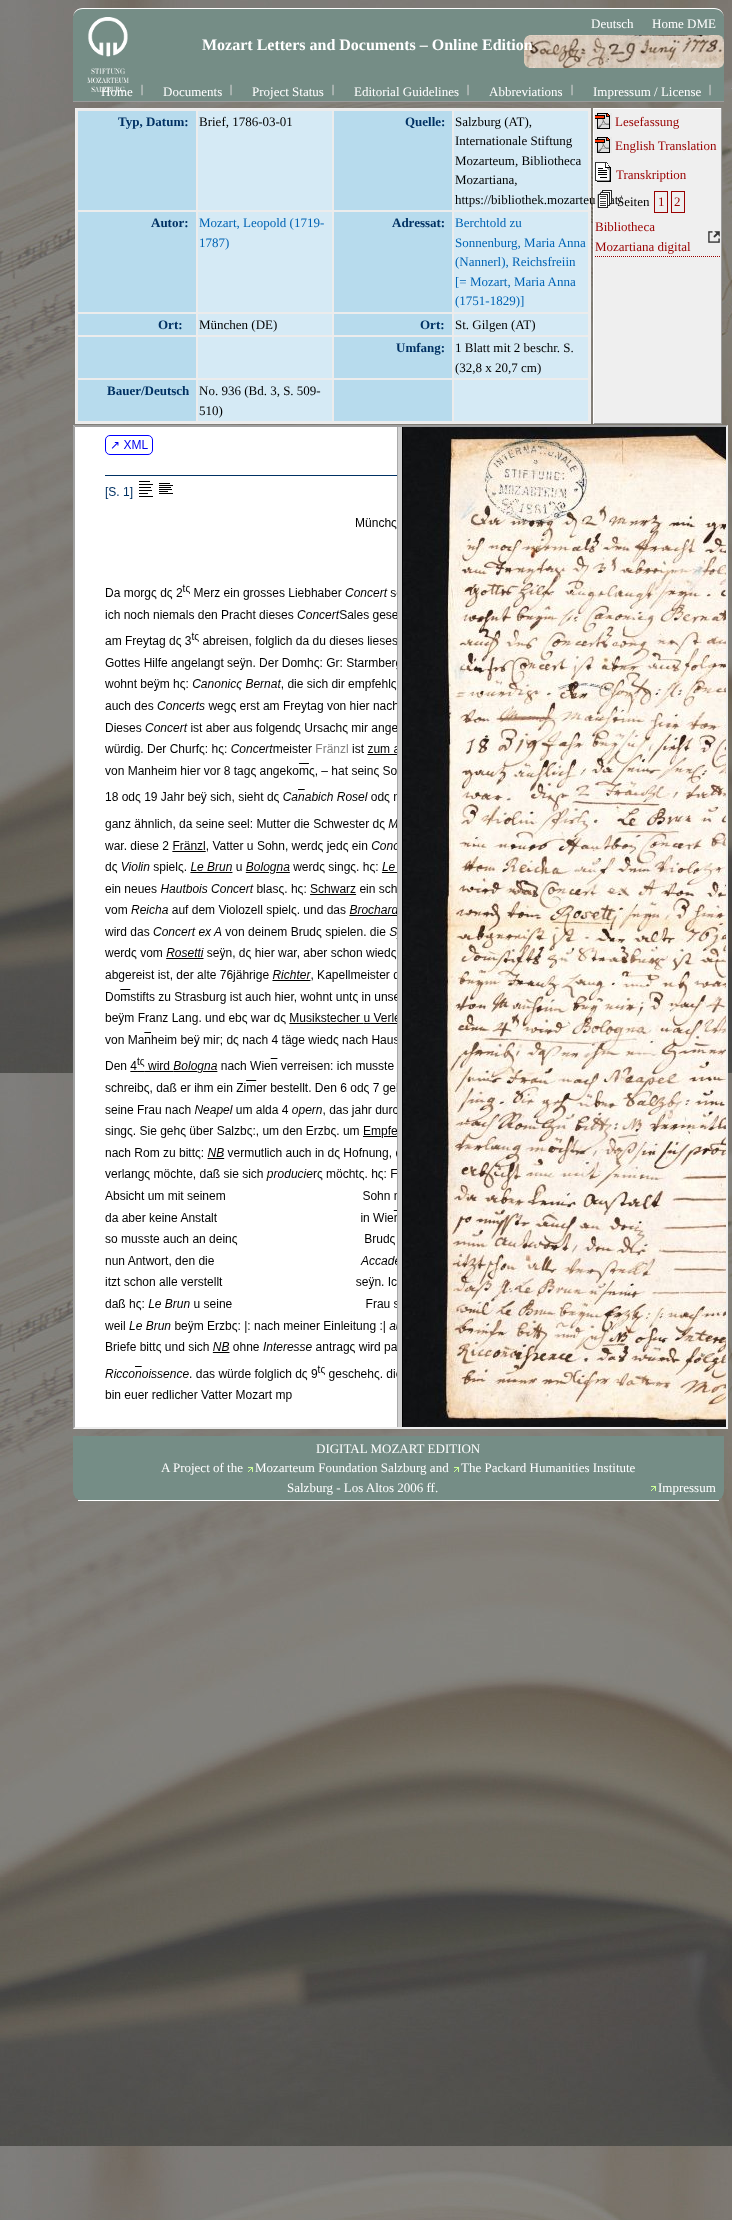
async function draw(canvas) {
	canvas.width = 732;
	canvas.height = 2220;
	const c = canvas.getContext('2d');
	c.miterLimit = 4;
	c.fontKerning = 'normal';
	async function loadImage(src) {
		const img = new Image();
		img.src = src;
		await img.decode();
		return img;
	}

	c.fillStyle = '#fff';
	c.fillRect(0, 0, 732, 2220);
	c.drawImage(await loadImage('img1.png'), 0, 0, 732, 2220);
	c.fillStyle = '#758d86';
	c.beginPath();
	c.roundRect(73, 8, 651, 94, [10, 10, 0, 0]);
	c.fill();
	c.drawImage(await loadImage('img2.png'), 87, 17, 42, 75);
	c.fillStyle = '#fff';
	c.beginPath();
	c.moveTo(83, 8);
	c.bezierCurveTo(77, 8, 73, 12, 73, 18);
	c.bezierCurveTo(73, 13, 77, 9, 83, 9);
	c.lineTo(714, 9);
	c.bezierCurveTo(720, 9, 724, 13, 724, 18);
	c.bezierCurveTo(724, 12, 720, 8, 714, 8);
	c.closePath();
	c.fill();
	c.fillStyle = '#9c9c9c';
	c.fillRect(73, 101, 651, 1);
	c.font = '13px Liberation Serif';
	c.fillStyle = '#fff';
	c.fillText('Deutsch', 591, 28);
	c.fillText('Home DME', 652, 28);
	c.drawImage(await loadImage('img3.png'), 524, 35, 200, 33);
	c.font = 'bold 16px Liberation Serif';
	c.fillText('Mozart Letters and Documents – Online Edition', 202, 50);
	c.font = '13px Liberation Serif';
	c.fillText('Home', 101, 96);
	c.drawImage(await loadImage('img4.png'), 141, 84, 2, 12);
	c.fillText('Documents', 163, 96);
	c.drawImage(await loadImage('img4.png'), 230, 84, 2, 12);
	c.fillText('Project Status', 252, 96);
	c.drawImage(await loadImage('img4.png'), 332, 84, 2, 12);
	c.fillText('Editorial Guidelines', 354, 96);
	c.drawImage(await loadImage('img4.png'), 467, 84, 2, 12);
	c.fillText('Abbreviations', 489, 96);
	c.drawImage(await loadImage('img4.png'), 571, 84, 2, 12);
	c.fillText('Impressum / License', 593, 96);
	c.drawImage(await loadImage('img4.png'), 709, 84, 2, 12);
	for (const [x, y, w, h, color] of [
		[731, 88, 1, 1, '#949494'],
		[75, 108, 516, 316, '#efefef'],
		[76, 109, 514, 314, '#ececec'],
		[78, 111, 118, 99, '#b7dbed'],
	]) {
		c.fillStyle = color;
		c.fillRect(x, y, w, h);
	}
	c.font = 'bold 13px Liberation Serif';
	c.fillStyle = '#003163';
	c.fillText('Typ, Datum:', 118, 126);
	c.fillStyle = '#d5eaf5';
	c.fillRect(198, 111, 134, 99);
	c.font = '13px Liberation Serif';
	c.fillStyle = '#000';
	c.fillText('Brief, 1786-03-01', 199, 126);
	c.fillStyle = '#b7dbed';
	c.fillRect(334, 111, 118, 99);
	c.font = 'bold 13px Liberation Serif';
	c.fillStyle = '#003163';
	c.fillText('Quelle:', 405, 126);
	c.fillStyle = '#d5eaf5';
	c.fillRect(454, 111, 134, 99);
	c.font = '13px Liberation Serif';
	c.fillStyle = '#000';
	for (const [text, x, y] of [
		['Salzburg (AT),', 455, 126],
		['Internationale Stiftung', 455, 145],
		['Mozarteum, Bibliotheca', 455, 165],
		['Mozartiana,', 455, 184],
	]) {
		c.fillText(text, x, y);
	}
	for (const [x, y, w, h, color] of [
		[594, 109, 127, 314, '#efefef'],
		[593, 108, 129, 1, '#fff'],
		[721, 108, 1, 316, '#9c9c9c'],
		[593, 423, 129, 1, '#9c9c9c'],
		[593, 108, 1, 316, '#fff'],
	]) {
		c.fillStyle = color;
		c.fillRect(x, y, w, h);
	}
	c.fillStyle = '#000';
	c.fillText('https://bibliothek.mozarteu', 455, 204);
	c.fillText('at/', 609, 204);
	c.fillStyle = '#b7dbed';
	c.fillRect(78, 212, 118, 100);
	c.font = 'bold 13px Liberation Serif';
	c.fillStyle = '#003163';
	c.fillText('Autor:', 151, 227);
	c.fillStyle = '#d5eaf5';
	c.fillRect(198, 212, 134, 100);
	c.font = '13px Liberation Serif';
	c.fillStyle = '#0064b4';
	c.fillText('Mozart, Leopold (1719-', 199, 227);
	c.fillText('1787)', 199, 247);
	c.fillStyle = '#b7dbed';
	c.fillRect(334, 212, 118, 100);
	c.font = 'bold 13px Liberation Serif';
	c.fillStyle = '#003163';
	c.fillText('Adressat:', 392, 227);
	c.fillStyle = '#d5eaf5';
	c.fillRect(454, 212, 134, 100);
	c.font = '13px Liberation Serif';
	c.fillStyle = '#0064b4';
	for (const [text, x, y] of [
		['Berchtold zu', 455, 227],
		['Sonnenburg, Maria Anna', 455, 247],
		['(Nannerl), Reichsfreiin', 455, 266],
		['[= Mozart, Maria Anna', 455, 286],
		['(1751-1829)]', 455, 305],
	]) {
		c.fillText(text, x, y);
	}
	c.fillStyle = '#b7dbed';
	c.fillRect(78, 314, 118, 21);
	c.font = 'bold 13px Liberation Serif';
	c.fillStyle = '#003163';
	c.fillText('Ort:', 158, 329);
	c.fillStyle = '#d5eaf5';
	c.fillRect(198, 314, 134, 21);
	c.font = '13px Liberation Serif';
	c.fillStyle = '#000';
	c.fillText('München (DE)', 199, 329);
	c.fillStyle = '#b7dbed';
	c.fillRect(334, 314, 118, 21);
	c.font = 'bold 13px Liberation Serif';
	c.fillStyle = '#003163';
	c.fillText('Ort:', 420, 329);
	c.fillStyle = '#d5eaf5';
	c.fillRect(454, 314, 134, 21);
	c.font = '13px Liberation Serif';
	c.fillStyle = '#000';
	c.fillText('St. Gilgen (AT)', 455, 329);
	for (const [x, y, w, h, color] of [
		[78, 337, 118, 41, '#b7dbed'],
		[198, 337, 134, 41, '#d5eaf5'],
		[334, 337, 118, 41, '#b7dbed'],
	]) {
		c.fillStyle = color;
		c.fillRect(x, y, w, h);
	}
	c.font = 'bold 13px Liberation Serif';
	c.fillStyle = '#003163';
	c.fillText('Umfang:', 396, 352);
	c.fillStyle = '#d5eaf5';
	c.fillRect(454, 337, 134, 41);
	c.font = '13px Liberation Serif';
	c.fillStyle = '#000';
	c.fillText('1 Blatt mit 2 beschr. S.', 455, 352);
	c.fillText('(32,8 x 20,7 cm)', 455, 372);
	c.fillStyle = '#b7dbed';
	c.fillRect(78, 380, 118, 41);
	c.font = 'bold 13px Liberation Serif';
	c.fillStyle = '#003163';
	c.fillText('Bauer/Deutsch', 107, 395);
	c.fillStyle = '#d5eaf5';
	c.fillRect(198, 380, 134, 41);
	c.font = '13px Liberation Serif';
	c.fillStyle = '#000';
	c.fillText('No. 936 (Bd. 3, S. 509-', 199, 395);
	c.fillText('510)', 199, 415);
	c.fillStyle = '#b7dbed';
	c.fillRect(334, 380, 118, 41);
	c.fillStyle = '#d5eaf5';
	c.fillRect(454, 380, 134, 41);
	c.drawImage(await loadImage('img5.png'), 595, 113, 17, 16);
	c.fillStyle = '#900';
	c.fillText('Lesefassung', 615, 126);
	c.drawImage(await loadImage('img5.png'), 595, 137, 17, 16);
	c.fillText('English Translation', 615, 150);
	c.drawImage(await loadImage('img6.png'), 595, 162, 16, 20);
	c.fillText('Transkription', 616, 179);
	c.drawImage(await loadImage('img7.png'), 597, 190, 15, 18);
	c.fillStyle = '#000';
	c.fillText('Seiten', 617, 206);
	c.strokeStyle = '#900';
	c.strokeRect(654.5, 191.5, 13, 21);
	c.fillStyle = '#900';
	c.fillText('1', 658, 206);
	c.strokeRect(671.5, 191.5, 13, 21);
	c.fillText('2', 674, 206);
	c.drawImage(await loadImage('img8.png'), 708, 231, 12, 12);
	c.beginPath();
	c.moveTo(595, 256.5);
	c.lineTo(720, 256.5);
	c.setLineDash([1, 1]);
	c.stroke();
	c.fillText('Bibliotheca', 595, 231);
	c.fillText('Mozartiana digital', 595, 251);
	c.fillStyle = '#fff';
	c.fillRect(73, 425, 655, 1004);
	c.fillStyle = '#9f9f9f';
	c.beginPath();
	c.moveTo(73, 425);
	c.lineTo(728, 425);
	c.lineTo(726, 427);
	c.lineTo(75, 427);
	c.closePath();
	c.fill();
	c.fillStyle = '#eee';
	c.beginPath();
	c.moveTo(728, 425);
	c.lineTo(728, 1429);
	c.lineTo(726, 1427);
	c.lineTo(726, 427);
	c.closePath();
	c.fill();
	c.beginPath();
	c.moveTo(728, 1429);
	c.lineTo(73, 1429);
	c.lineTo(75, 1427);
	c.lineTo(726, 1427);
	c.closePath();
	c.fill();
	c.fillStyle = '#9f9f9f';
	c.beginPath();
	c.moveTo(73, 1429);
	c.lineTo(73, 425);
	c.lineTo(75, 427);
	c.lineTo(75, 1427);
	c.closePath();
	c.fill();
	c.drawImage(await loadImage('img9.png'), 105, 427, 621, 1000);
	c.fillStyle = '#758d86';
	c.beginPath();
	c.roundRect(73, 1436, 651, 65, [0, 0, 10, 10]);
	c.fill();
	c.fillStyle = '#fff';
	c.fillRect(78, 1500, 641, 1);
	c.fillStyle = '#758d86';
	c.fillRect(75, 1497, 647, 1);
	c.fillStyle = '#fff';
	c.fillText('DIGITAL MOZART EDITION', 316, 1453);
	c.fillText('A Project of the', 161, 1472);
	c.drawImage(await loadImage('img10.png'), 248, 1467, 5, 5);
	c.fillText('Mozarteum Foundation Salzburg and', 255, 1472);
	c.drawImage(await loadImage('img10.png'), 454, 1467, 5, 5);
	c.fillText('The Packard Humanities Institute', 461, 1472);
	c.fillText('Salzburg - Los Altos 2006 ff.', 287, 1492);
	c.drawImage(await loadImage('img10.png'), 651, 1486, 5, 5);
	c.fillText('Impressum', 658, 1492);
}

draw(document.querySelector('canvas'));
